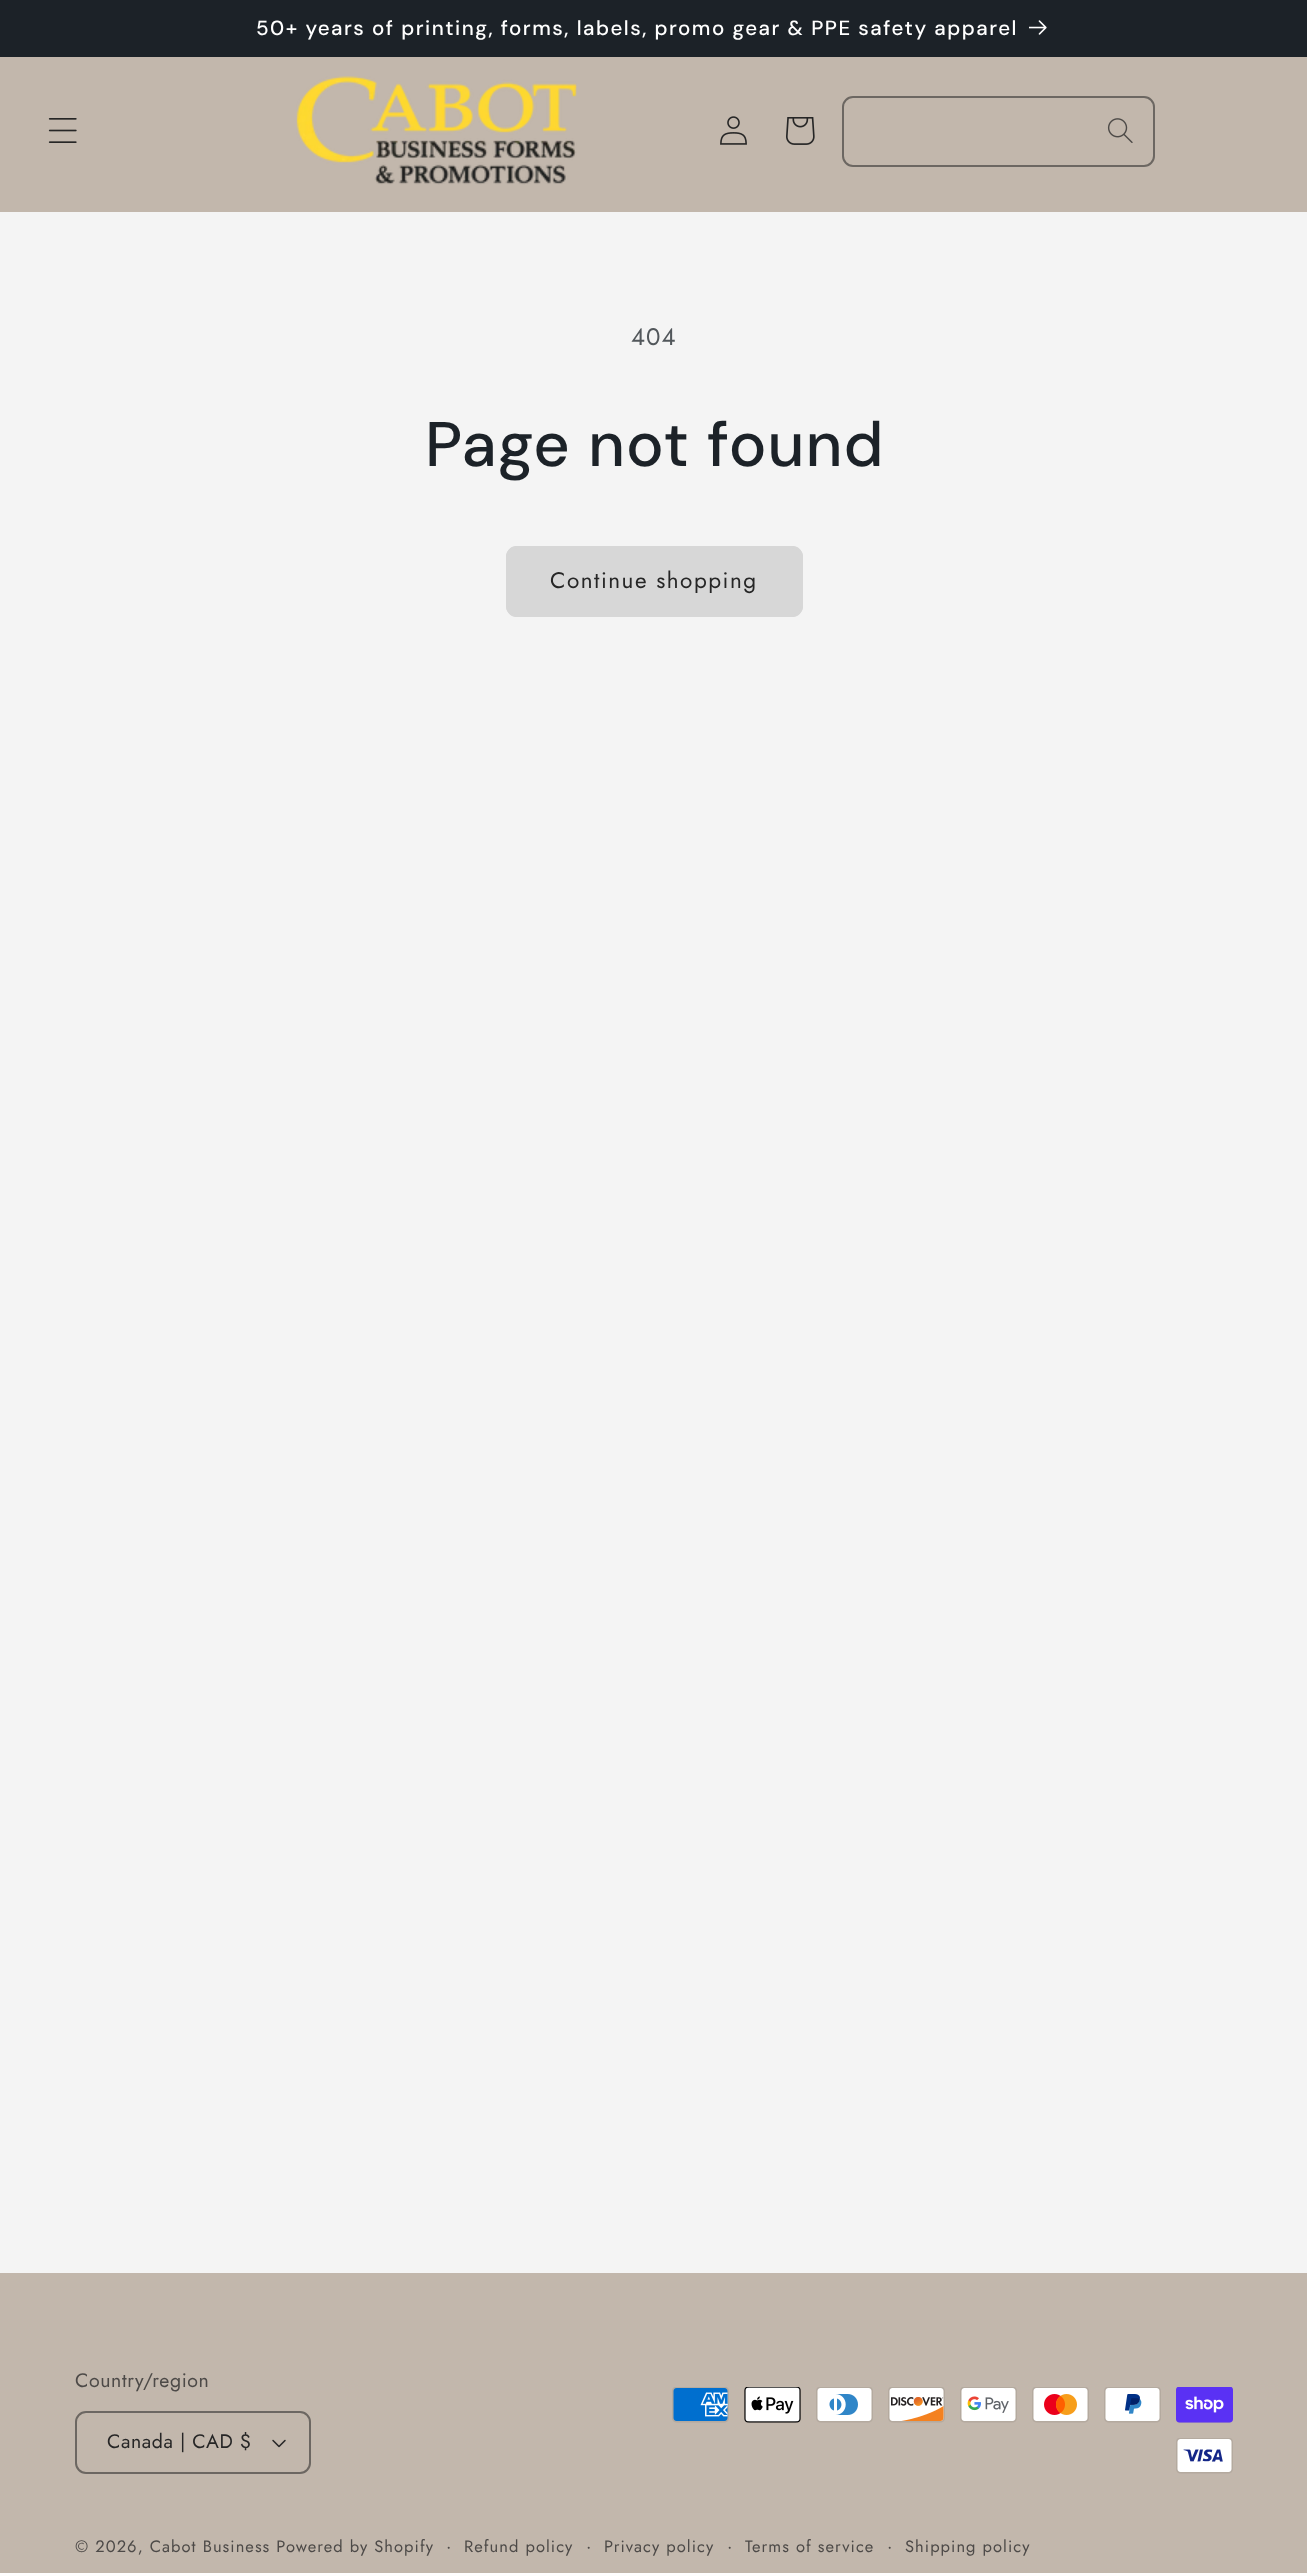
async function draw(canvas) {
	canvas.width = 1307;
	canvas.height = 2573;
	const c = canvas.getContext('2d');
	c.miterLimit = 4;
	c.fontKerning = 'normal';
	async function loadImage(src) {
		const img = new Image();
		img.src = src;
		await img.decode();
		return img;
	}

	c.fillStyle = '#f4f4f4';
	c.fillRect(0, 0, 1307, 2573);
	c.fillStyle = '#1c2228';
	c.fillRect(0, 0, 1307, 57);
	c.letterSpacing = '1.5px';
	c.font = '500 20.5px DM Sans';
	c.fillStyle = '#fff';
	c.fillText('50+ years of printing, forms, labels, promo gear & PPE safety apparel', 256, 35);
	c.drawImage(await loadImage('img1.png'), 1029, 20, 18, 15);
	c.fillStyle = '#c2b7ac';
	c.fillRect(0, 57, 1307, 155);
	c.drawImage(await loadImage('img2.png'), 48, 118, 29, 25);
	c.drawImage(await loadImage('img3.png'), 296, 76, 281, 109);
	c.drawImage(await loadImage('img4.png'), 720, 116, 27, 29);
	c.drawImage(await loadImage('img5.png'), 786, 117, 29, 28);
	c.drawImage(await loadImage('img6.png'), 1107, 118, 26, 25);
	c.beginPath();
	c.roundRect(843, 97, 311, 69, 10);
	c.strokeStyle = '#6c6762';
	c.lineWidth = 2;
	c.stroke();
	c.letterSpacing = '1px';
	c.font = '24px Jost';
	c.fillStyle = '#52575b';
	c.fillText('404', 631, 345);
	c.font = '500 63px DM Sans';
	c.fillStyle = '#1c2228';
	c.fillText('Page not found', 425, 466);
	c.fillStyle = '#d7d7d7';
	c.beginPath();
	c.roundRect(506, 546, 297, 71, 11);
	c.fill();
	c.beginPath();
	c.roundRect(507, 547, 295, 69, 10);
	c.strokeStyle = '#d7d7d7';
	c.stroke();
	c.letterSpacing = '1.5px';
	c.font = '22.5px Jost';
	c.fillStyle = '#262626';
	c.fillText('Continue shopping', 550, 588);
	c.fillStyle = '#c2b7ac';
	c.fillRect(0, 2273, 1307, 300);
	c.letterSpacing = '0.6px';
	c.font = '19.5px Jost';
	c.fillStyle = '#4d4a48';
	c.fillText('Country/region', 75, 2387);
	c.drawImage(await loadImage('img7.png'), 272, 2439, 14, 9);
	c.beginPath();
	c.roundRect(76, 2412, 234, 61, 10);
	c.strokeStyle = '#6c6762';
	c.stroke();
	c.fillStyle = '#262626';
	c.fillText('Canada | CAD $', 107, 2448);
	c.drawImage(await loadImage('img8.png'), 672, 2387, 57, 36);
	c.drawImage(await loadImage('img9.png'), 744, 2387, 57, 36);
	c.drawImage(await loadImage('img10.png'), 816, 2387, 57, 36);
	c.drawImage(await loadImage('img11.png'), 888, 2387, 57, 36);
	c.drawImage(await loadImage('img12.png'), 960, 2387, 57, 36);
	c.drawImage(await loadImage('img13.png'), 1032, 2387, 57, 36);
	c.drawImage(await loadImage('img14.png'), 1104, 2387, 57, 36);
	c.drawImage(await loadImage('img15.png'), 1176, 2387, 57, 36);
	c.drawImage(await loadImage('img16.png'), 1176, 2438, 57, 36);
	c.letterSpacing = '1.05px';
	c.font = '16.5px Jost';
	c.fillStyle = '#4d4a48';
	c.fillText('© 2026, Cabot Business Powered by Shopify', 75, 2552);
	c.font = '18px Jost';
	c.fillText('·', 446, 2552);
	c.font = '16.5px Jost';
	c.fillText('Refund policy', 464, 2552);
	c.font = '18px Jost';
	c.fillText('·', 586, 2552);
	c.font = '16.5px Jost';
	c.fillText('Privacy policy', 604, 2552);
	c.font = '18px Jost';
	c.fillText('·', 727, 2552);
	c.font = '16.5px Jost';
	c.fillText('Terms of service', 745, 2552);
	c.font = '18px Jost';
	c.fillText('·', 887, 2552);
	c.font = '16.5px Jost';
	c.fillText('Shipping policy', 905, 2552);
}

draw(document.querySelector('canvas'));
